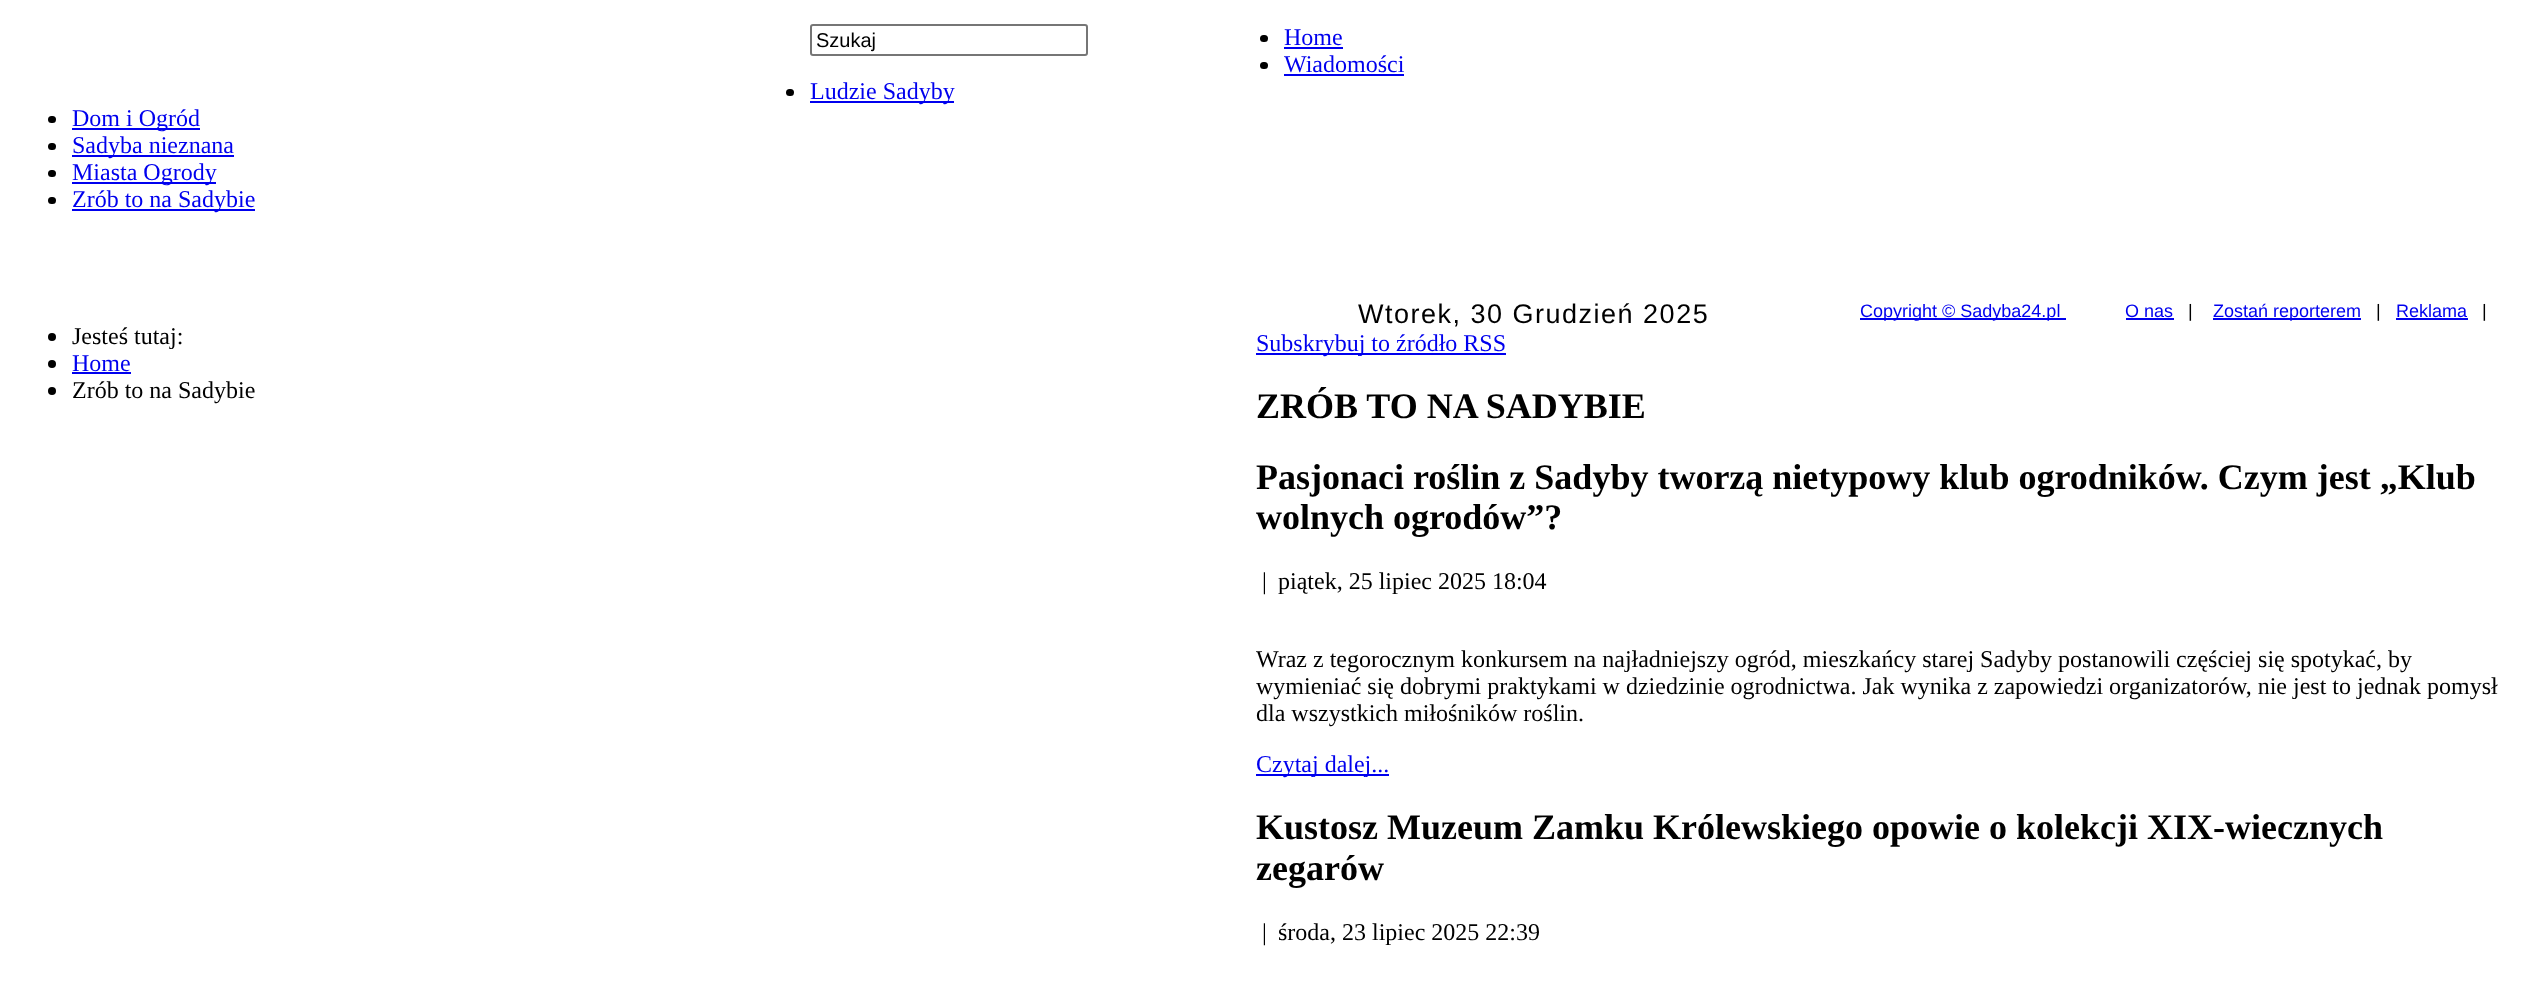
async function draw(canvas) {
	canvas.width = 2528;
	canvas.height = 1001;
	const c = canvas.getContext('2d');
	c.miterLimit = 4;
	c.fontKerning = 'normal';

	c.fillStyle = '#fff';
	c.fillRect(0, 0, 2528, 1001);
	c.fillStyle = '#000';
	c.beginPath();
	c.roundRect(1260, 35, 8, 7, 3.5);
	c.fill();
	c.font = '24px Liberation Serif';
	c.fillStyle = '#00e';
	c.fillText('Home', 1284, 45);
	c.fillRect(1284, 47, 59, 2);
	c.fillStyle = '#000';
	c.beginPath();
	c.roundRect(1260, 62, 8, 7, 3.5);
	c.fill();
	c.fillStyle = '#00e';
	c.fillText('Wiadomości', 1284, 72);
	c.fillRect(1284, 74, 120, 2);
	c.fillStyle = '#000';
	c.beginPath();
	c.roundRect(786, 89, 8, 7, 3.5);
	c.fill();
	c.fillStyle = '#00e';
	c.fillRect(810, 101, 144, 2);
	c.fillText('Ludzie Sadyby', 810, 99);
	c.fillStyle = '#000';
	c.beginPath();
	c.roundRect(48, 116, 8, 7, 3.5);
	c.fill();
	c.fillStyle = '#00e';
	c.fillRect(72, 128, 128, 2);
	c.fillText('Dom i Ogród', 72, 126);
	c.fillStyle = '#000';
	c.beginPath();
	c.roundRect(48, 143, 8, 7, 3.5);
	c.fill();
	c.fillStyle = '#00e';
	c.fillRect(72, 155, 162, 2);
	c.fillText('Sadyba nieznana', 72, 153);
	c.fillStyle = '#000';
	c.beginPath();
	c.roundRect(48, 170, 8, 7, 3.5);
	c.fill();
	c.fillStyle = '#00e';
	c.fillRect(72, 182, 144, 2);
	c.fillText('Miasta Ogrody', 72, 180);
	c.fillStyle = '#000';
	c.beginPath();
	c.roundRect(48, 197, 8, 7, 3.5);
	c.fill();
	c.fillStyle = '#00e';
	c.fillRect(72, 209, 183, 2);
	c.fillText('Zrób to na Sadybie', 72, 207);
	c.beginPath();
	c.roundRect(811, 25, 276, 30, 2);
	c.strokeStyle = '#767676';
	c.lineWidth = 2;
	c.stroke();
	c.font = '20px Liberation Sans';
	c.fillStyle = '#000';
	c.fillText('Szukaj', 816, 47);
	c.letterSpacing = '1.5px';
	c.font = '27px Liberation Sans';
	c.fillText('Wtorek, 30 Grudzień 2025', 1358, 323);
	c.beginPath();
	c.arc(52, 337, 4, 0, 2 * Math.PI);
	c.fill();
	c.letterSpacing = '0px';
	c.font = '24px Liberation Serif';
	c.fillText('Jesteś tutaj:', 72, 344);
	c.beginPath();
	c.arc(52, 364, 4, 0, 2 * Math.PI);
	c.fill();
	c.fillStyle = '#00e';
	c.fillText('Home', 72, 371);
	c.fillRect(72, 372, 59, 2);
	c.fillStyle = '#000';
	c.beginPath();
	c.arc(52, 391, 4, 0, 2 * Math.PI);
	c.fill();
	c.fillText('Zrób to na Sadybie', 72, 398);
	c.fillStyle = '#00e';
	c.fillRect(1860, 318, 206, 2);
	c.font = '18px Liberation Sans';
	c.fillText('Copyright © Sadyba24.pl', 1860, 317);
	c.fillText('O nas', 2125, 317);
	c.fillRect(2126, 318, 48, 2);
	c.fillStyle = '#000';
	c.fillText('|', 2188, 317);
	c.fillStyle = '#00e';
	c.fillRect(2213, 318, 148, 2);
	c.fillText('Zostań reporterem', 2213, 317);
	c.fillStyle = '#000';
	c.fillText('|', 2376, 317);
	c.fillStyle = '#00e';
	c.fillText('Reklama', 2396, 317);
	c.fillRect(2396, 318, 72, 2);
	c.fillStyle = '#000';
	c.fillText('|', 2482, 317);
	c.fillStyle = '#00e';
	c.fillRect(1256, 353, 250, 2);
	c.font = '24px Liberation Serif';
	c.fillText('Subskrybuj to źródło RSS', 1256, 351);
	c.font = 'bold 36px Liberation Serif';
	c.fillStyle = '#000';
	for (const [text, x, y] of [
		['ZRÓB TO NA SADYBIE', 1256, 418],
		['Pasjonaci roślin z Sadyby tworzą nietypowy klub ogrodników. Czym jest „Klub', 1256, 489],
		['wolnych ogrodów”?', 1256, 529],
	]) {
		c.fillText(text, x, y);
	}
	c.font = '24px Liberation Serif';
	for (const [text, x, y] of [
		['|', 1262, 589],
		['piątek, 25 lipiec 2025 18:04', 1278, 589],
		['Wraz z tegorocznym konkursem na najładniejszy ogród, mieszkańcy starej Sadyby postanowili częściej się spotykać, by', 1256, 667],
		['wymieniać się dobrymi praktykami w dziedzinie ogrodnictwa. Jak wynika z zapowiedzi organizatorów, nie jest to jednak pomysł', 1256, 694],
		['dla wszystkich miłośników roślin.', 1256, 721],
	]) {
		c.fillText(text, x, y);
	}
	c.fillStyle = '#00e';
	c.fillRect(1256, 774, 133, 2);
	c.fillText('Czytaj dalej...', 1256, 772);
	c.font = 'bold 36px Liberation Serif';
	c.fillStyle = '#000';
	c.fillText('Kustosz Muzeum Zamku Królewskiego opowie o kolekcji XIX-wiecznych', 1256, 839);
	c.fillText('zegarów', 1256, 880);
	c.font = '24px Liberation Serif';
	c.fillText('|', 1262, 940);
	c.fillText('środa, 23 lipiec 2025 22:39', 1278, 940);
}

draw(document.querySelector('canvas'));
